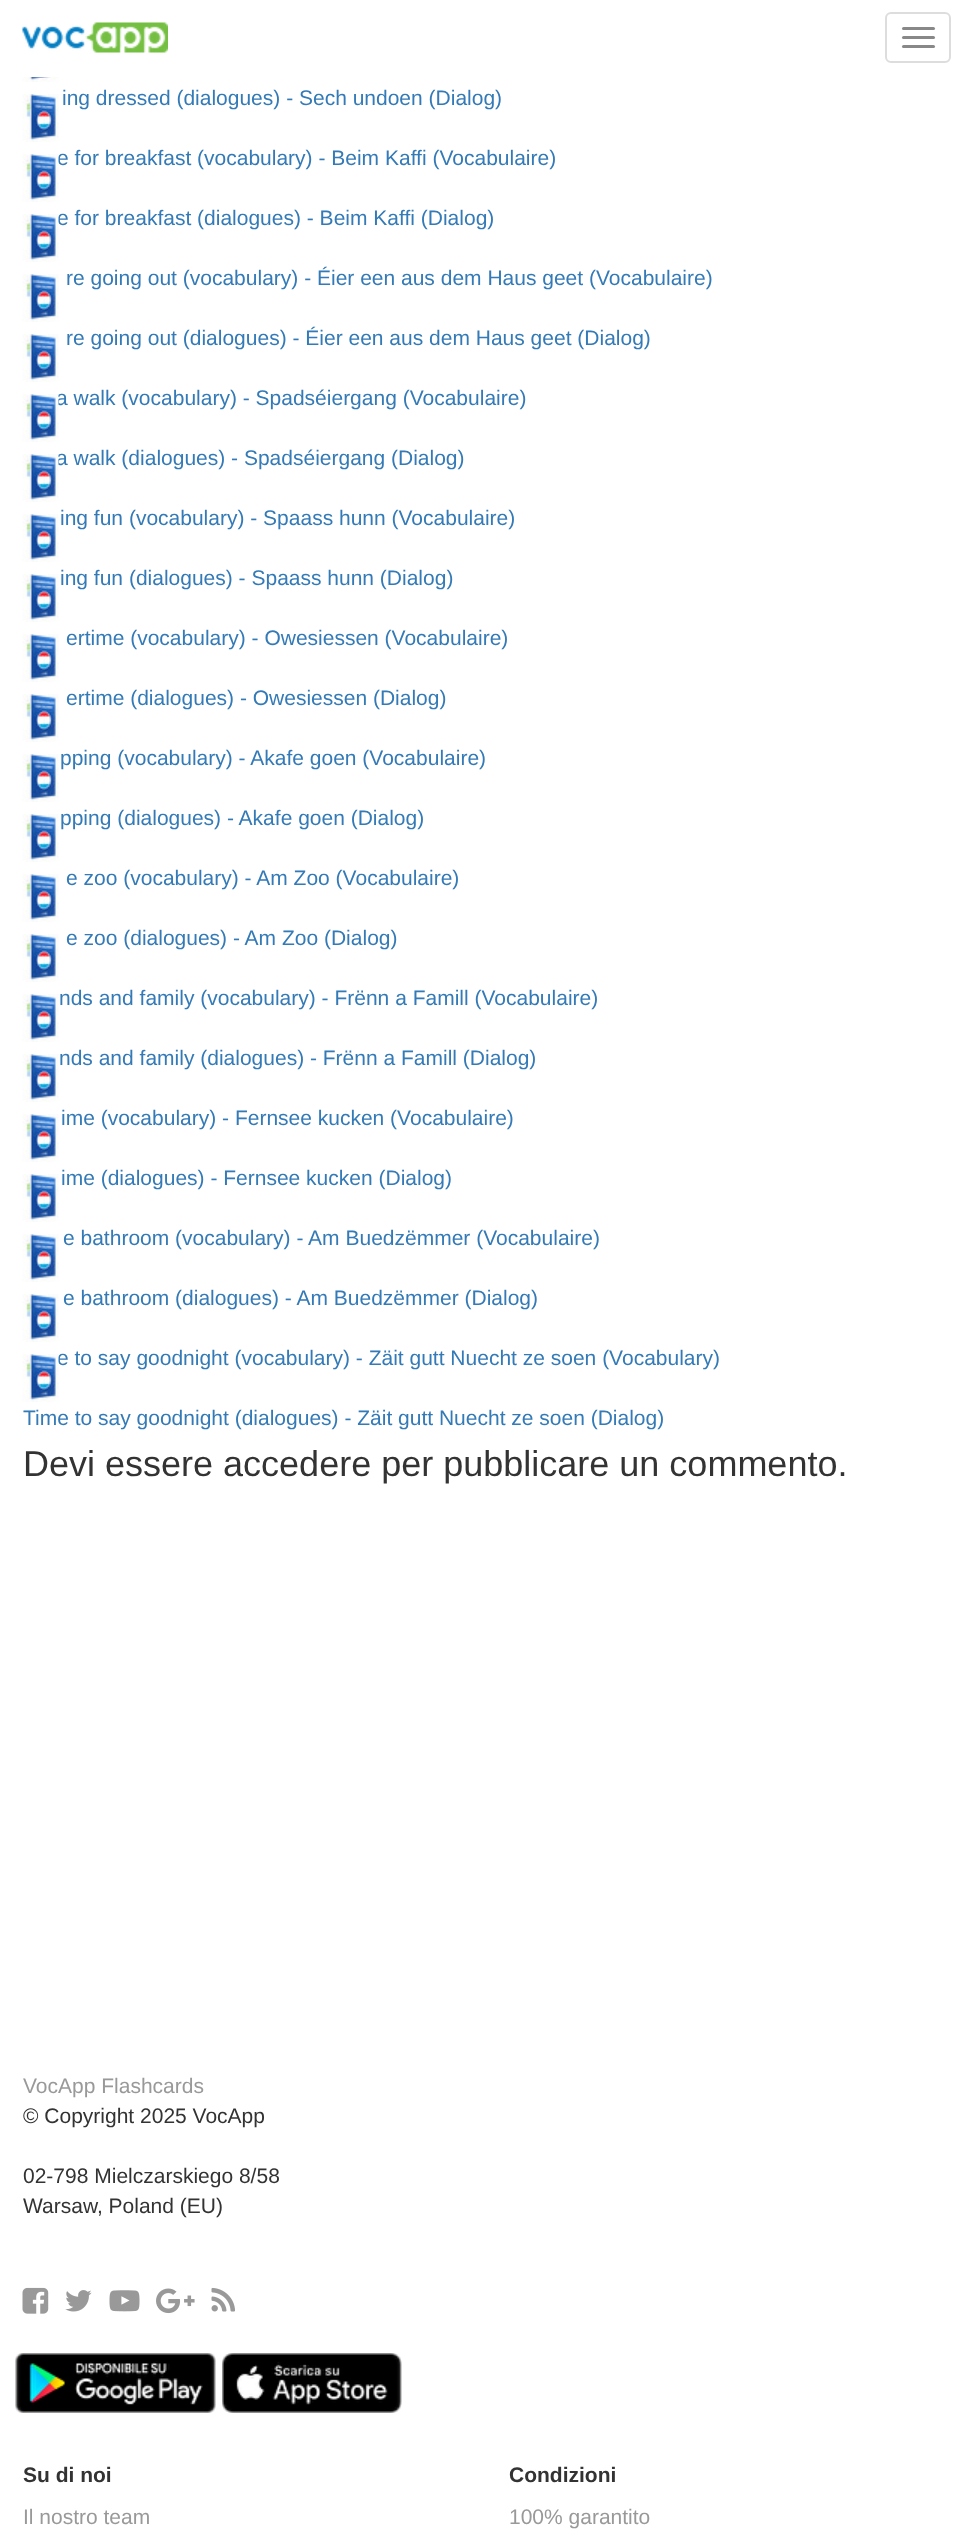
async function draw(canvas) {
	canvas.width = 973;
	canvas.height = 2536;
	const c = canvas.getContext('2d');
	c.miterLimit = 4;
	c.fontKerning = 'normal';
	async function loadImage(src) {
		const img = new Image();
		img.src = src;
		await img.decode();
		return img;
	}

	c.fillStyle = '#fff';
	c.fillRect(0, 0, 973, 2536);
	c.drawImage(await loadImage('img1.png'), 22, 22, 146, 31);
	c.beginPath();
	c.roundRect(886, 13, 64, 49, 5);
	c.strokeStyle = '#ddd';
	c.lineWidth = 2;
	c.stroke();
	c.fillStyle = '#888';
	c.beginPath();
	c.roundRect(902, 27, 33, 3, 1.5);
	c.fill();
	c.beginPath();
	c.roundRect(902, 36, 33, 3, 1.5);
	c.fill();
	c.beginPath();
	c.roundRect(902, 45, 33, 3, 1.5);
	c.fill();
	c.drawImage(await loadImage('img2.png'), 22, 77, 37, 5);
	c.font = '21px Liberation Sans';
	c.fillStyle = '#337ab7';
	c.fillText('ing dressed (dialogues) - Sech undoen (Dialog)', 62, 105);
	c.drawImage(await loadImage('img3.png'), 22, 94, 37, 48);
	c.fillText('e for breakfast (vocabulary) - Beim Kaffi (Vocabulaire)', 57, 165);
	c.drawImage(await loadImage('img4.png'), 22, 154, 37, 48);
	c.fillText('e for breakfast (dialogues) - Beim Kaffi (Dialog)', 57, 225);
	c.drawImage(await loadImage('img4.png'), 22, 214, 37, 48);
	c.fillText('re going out (vocabulary) - Éier een aus dem Haus geet (Vocabulaire)', 66, 285);
	c.drawImage(await loadImage('img5.png'), 22, 274, 37, 48);
	c.fillText('re going out (dialogues) - Éier een aus dem Haus geet (Dialog)', 66, 345);
	c.drawImage(await loadImage('img5.png'), 22, 334, 37, 48);
	c.fillText('a walk (vocabulary) - Spadséiergang (Vocabulaire)', 56, 405);
	c.drawImage(await loadImage('img6.png'), 22, 394, 37, 48);
	c.fillText('a walk (dialogues) - Spadséiergang (Dialog)', 56, 465);
	c.drawImage(await loadImage('img6.png'), 22, 454, 37, 48);
	c.fillText('ing fun (vocabulary) - Spaass hunn (Vocabulaire)', 60, 525);
	c.drawImage(await loadImage('img7.png'), 22, 514, 37, 48);
	c.fillText('ing fun (dialogues) - Spaass hunn (Dialog)', 60, 585);
	c.drawImage(await loadImage('img7.png'), 22, 574, 37, 48);
	c.fillText('ertime (vocabulary) - Owesiessen (Vocabulaire)', 66, 645);
	c.drawImage(await loadImage('img8.png'), 22, 634, 37, 48);
	c.fillText('ertime (dialogues) - Owesiessen (Dialog)', 66, 705);
	c.drawImage(await loadImage('img8.png'), 22, 694, 37, 48);
	c.fillText('pping (vocabulary) - Akafe goen (Vocabulaire)', 60, 765);
	c.drawImage(await loadImage('img9.png'), 22, 754, 37, 48);
	c.fillText('pping (dialogues) - Akafe goen (Dialog)', 60, 825);
	c.drawImage(await loadImage('img9.png'), 22, 814, 37, 48);
	c.fillText('e zoo (vocabulary) - Am Zoo (Vocabulaire)', 66, 885);
	c.drawImage(await loadImage('img10.png'), 22, 874, 37, 48);
	c.fillText('e zoo (dialogues) - Am Zoo (Dialog)', 66, 945);
	c.drawImage(await loadImage('img10.png'), 22, 934, 37, 48);
	c.fillText('nds and family (vocabulary) - Frënn a Famill (Vocabulaire)', 59, 1005);
	c.drawImage(await loadImage('img11.png'), 22, 994, 37, 48);
	c.fillText('nds and family (dialogues) - Frënn a Famill (Dialog)', 59, 1065);
	c.drawImage(await loadImage('img11.png'), 22, 1054, 37, 48);
	c.fillText('ime (vocabulary) - Fernsee kucken (Vocabulaire)', 61, 1125);
	c.drawImage(await loadImage('img12.png'), 22, 1114, 37, 48);
	c.fillText('ime (dialogues) - Fernsee kucken (Dialog)', 61, 1185);
	c.drawImage(await loadImage('img12.png'), 22, 1174, 37, 48);
	c.fillText('e bathroom (vocabulary) - Am Buedzëmmer (Vocabulaire)', 63, 1245);
	c.drawImage(await loadImage('img13.png'), 22, 1234, 37, 48);
	c.fillText('e bathroom (dialogues) - Am Buedzëmmer (Dialog)', 63, 1305);
	c.drawImage(await loadImage('img13.png'), 22, 1294, 37, 48);
	c.fillText('e to say goodnight (vocabulary) - Zäit gutt Nuecht ze soen (Vocabulary)', 57, 1365);
	c.drawImage(await loadImage('img4.png'), 22, 1354, 37, 48);
	c.fillText('Time to say goodnight (dialogues) - Zäit gutt Nuecht ze soen (Dialog)', 23, 1425);
	c.font = '36px Liberation Sans';
	c.fillStyle = '#333';
	c.fillText('Devi essere accedere per pubblicare un commento.', 23, 1476);
	c.font = '21px Liberation Sans';
	c.fillStyle = '#999';
	c.fillText('VocApp Flashcards', 23, 2093);
	c.fillStyle = '#333';
	for (const [text, x, y] of [
		['© Copyright 2025 VocApp', 23, 2123],
		['02-798 Mielczarskiego 8/58', 23, 2183],
		['Warsaw, Poland (EU)', 23, 2213],
	]) {
		c.fillText(text, x, y);
	}
	c.drawImage(await loadImage('img14.png'), 22, 2287, 27, 27);
	c.drawImage(await loadImage('img15.png'), 65, 2290, 27, 22);
	c.drawImage(await loadImage('img16.png'), 109, 2290, 31, 22);
	c.drawImage(await loadImage('img17.png'), 156, 2288, 39, 26);
	c.drawImage(await loadImage('img18.png'), 211, 2287, 24, 25);
	c.drawImage(await loadImage('img19.png'), 15, 2353, 201, 60);
	c.drawImage(await loadImage('img20.png'), 222, 2353, 180, 60);
	c.font = 'bold 21px Liberation Sans';
	c.fillText('Su di noi', 23, 2482);
	c.font = '21px Liberation Sans';
	c.fillStyle = '#999';
	c.fillText('Il nostro team', 23, 2524);
	c.font = 'bold 21px Liberation Sans';
	c.fillStyle = '#333';
	c.fillText('Condizioni', 509, 2482);
	c.font = '21px Liberation Sans';
	c.fillStyle = '#999';
	c.fillText('100% garantito', 509, 2524);
}

draw(document.querySelector('canvas'));
